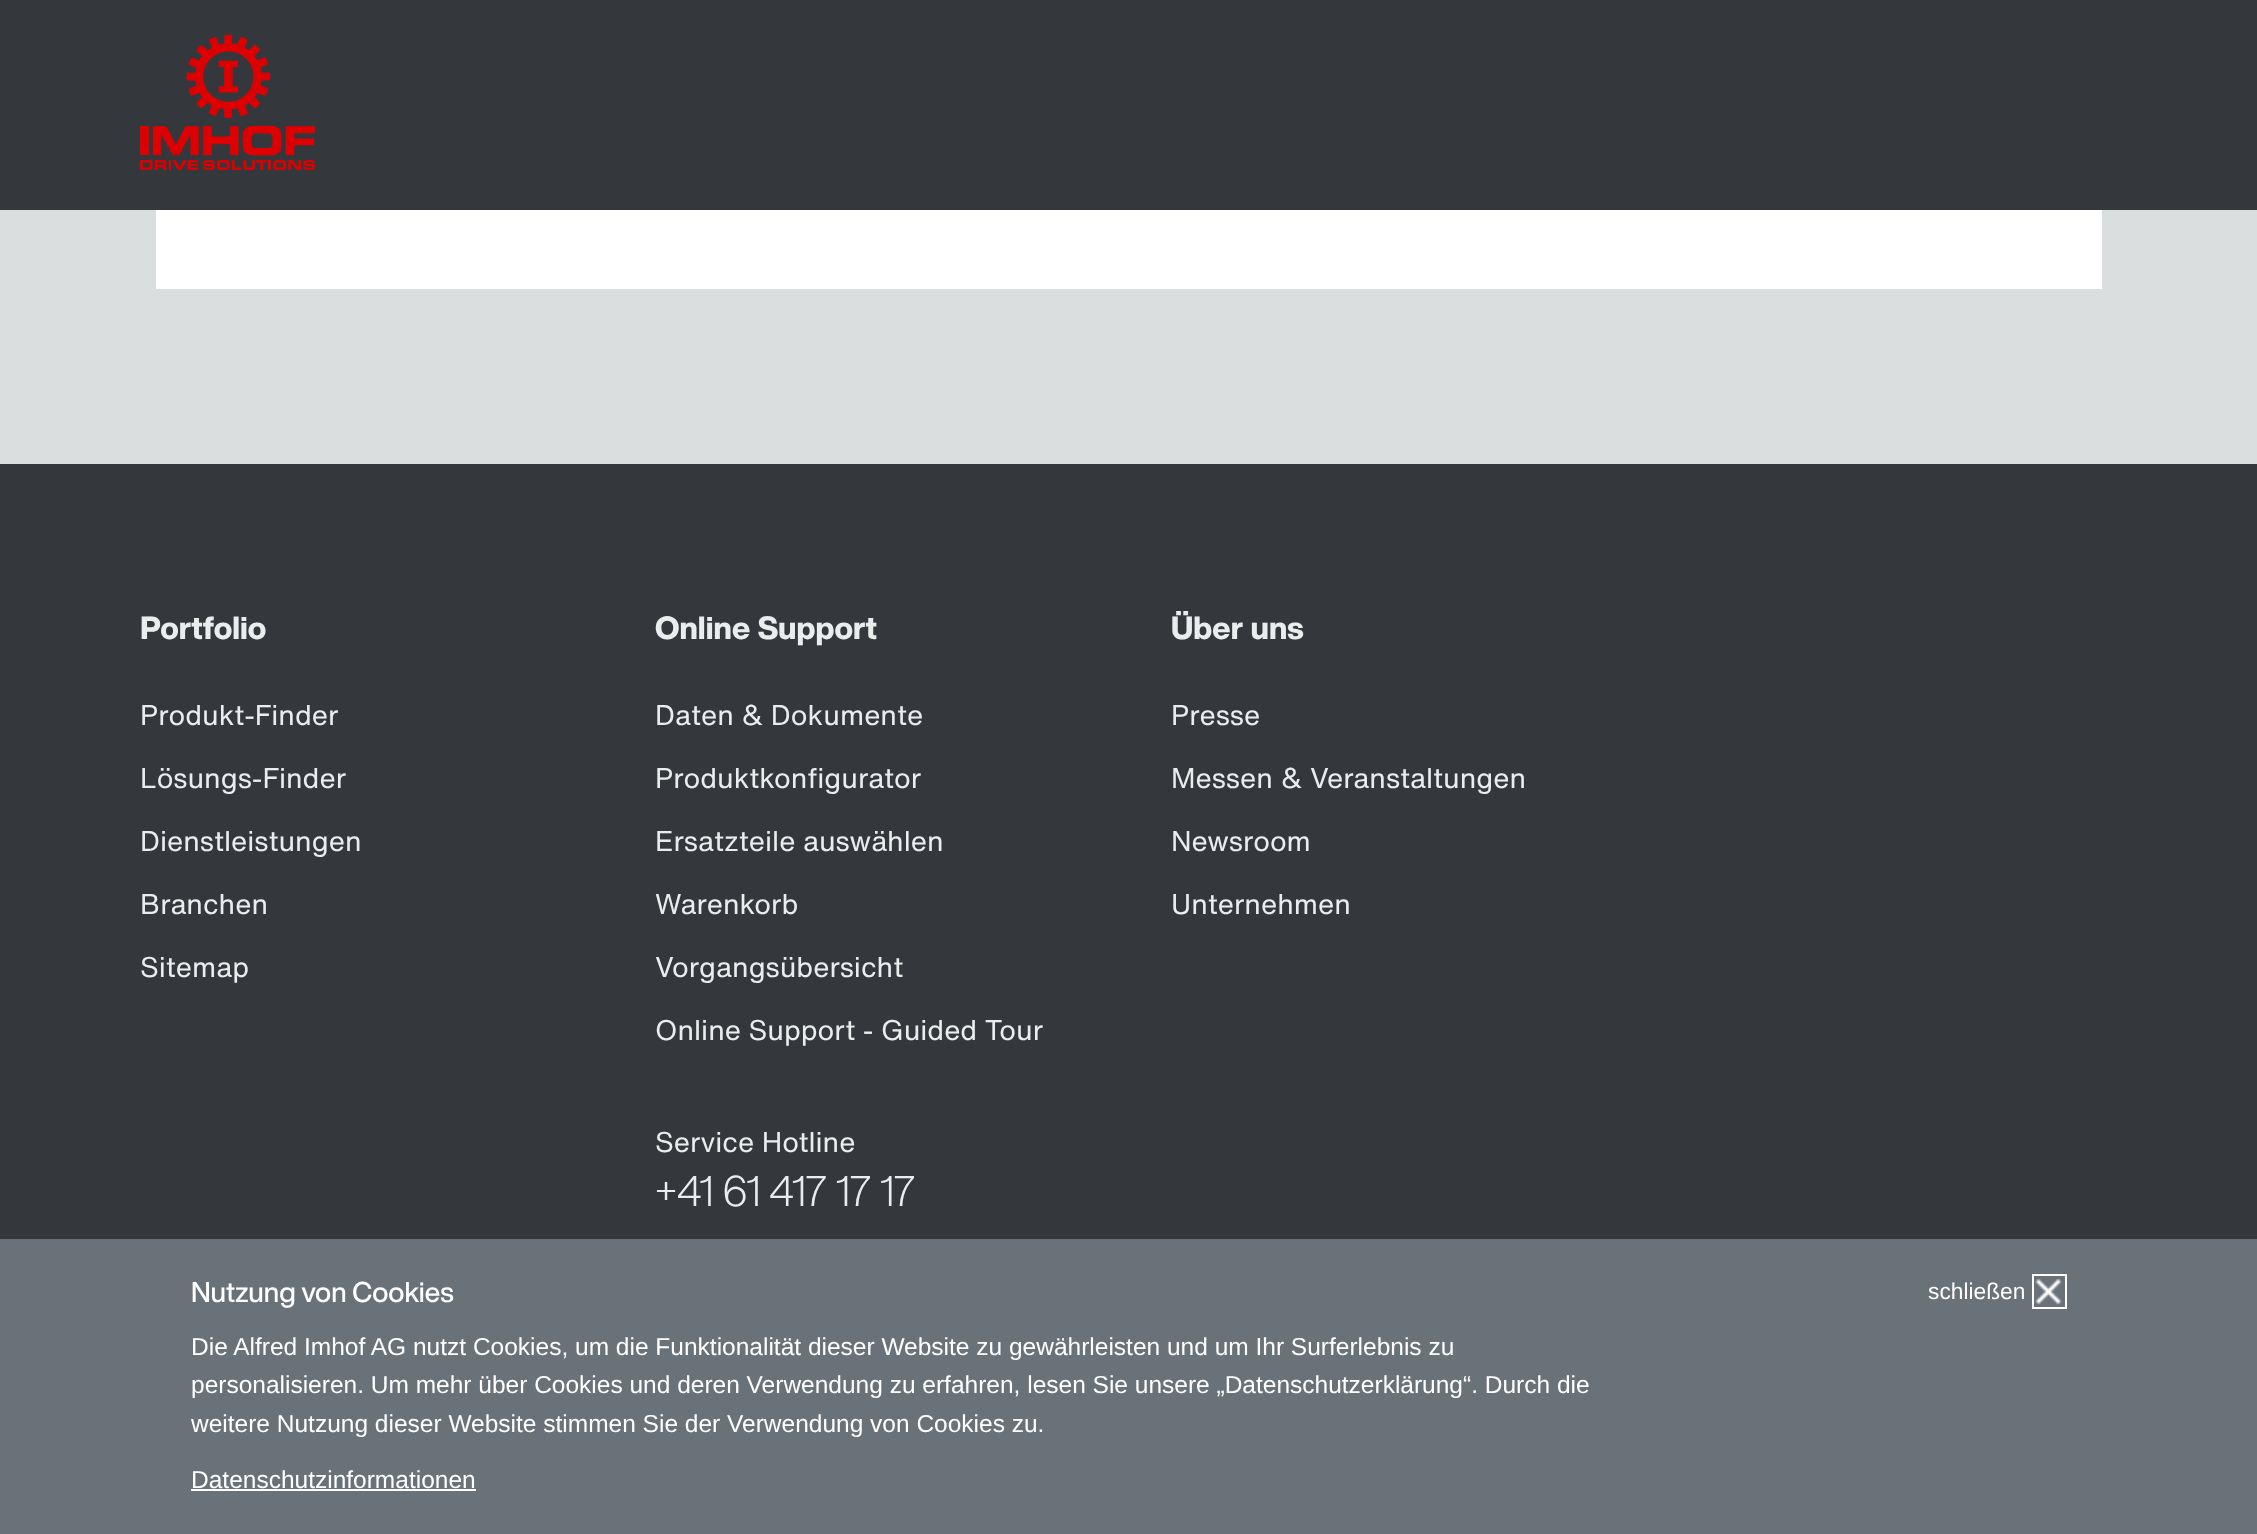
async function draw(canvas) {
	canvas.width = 2257;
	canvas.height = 1534;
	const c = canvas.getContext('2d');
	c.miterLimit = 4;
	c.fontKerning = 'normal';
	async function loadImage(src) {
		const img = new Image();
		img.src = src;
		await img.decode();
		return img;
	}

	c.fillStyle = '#dbdedf';
	c.fillRect(0, 0, 2257, 1534);
	c.fillStyle = '#34383c';
	c.fillRect(0, 0, 2257, 210);
	c.drawImage(await loadImage('img1.png'), 140, 35, 175, 135);
	c.fillStyle = '#fff';
	c.fillRect(156, 210, 1946, 79);
	c.fillStyle = '#34383c';
	c.fillRect(0, 464, 2257, 775);
	c.font = '800 31.5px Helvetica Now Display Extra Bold';
	c.fillStyle = '#ebeced';
	c.fillText('Portfolio', 140, 639);
	c.font = '28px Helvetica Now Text';
	for (const [text, x, y] of [
		['Produkt-Finder', 140, 725],
		['Lösungs-Finder', 140, 788],
		['Dienstleistungen', 140, 851],
		['Branchen', 140, 914],
		['Sitemap', 140, 977],
	]) {
		c.fillText(text, x, y);
	}
	c.font = '800 31.5px Helvetica Now Display Extra Bold';
	c.fillText('Online Support', 655, 639);
	c.font = '28px Helvetica Now Text';
	for (const [text, x, y] of [
		['Daten & Dokumente', 655, 725],
		['Produktkonfigurator', 655, 788],
		['Ersatzteile auswählen', 655, 851],
		['Warenkorb', 655, 914],
		['Vorgangsübersicht', 655, 977],
		['Online Support - Guided Tour', 655, 1040],
		['Service Hotline', 655, 1152],
	]) {
		c.fillText(text, x, y);
	}
	c.font = '300 42.25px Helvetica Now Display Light';
	c.fillText('+41 61 417 17 17', 655, 1206);
	c.font = '800 31.5px Helvetica Now Display Extra Bold';
	c.fillText('Über uns', 1171, 639);
	c.font = '28px Helvetica Now Text';
	for (const [text, x, y] of [
		['Presse', 1171, 725],
		['Messen & Veranstaltungen', 1171, 788],
		['Newsroom', 1171, 851],
		['Unternehmen', 1171, 914],
	]) {
		c.fillText(text, x, y);
	}
	c.fillStyle = '#697279';
	c.fillRect(0, 1239, 2257, 295);
	c.font = '500 28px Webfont';
	c.fillStyle = '#fff';
	c.fillText('Nutzung von Cookies', 191, 1302);
	c.font = '24.5px Liberation Sans';
	for (const [text, x, y] of [
		['Die Alfred Imhof AG nutzt Cookies, um die Funktionalität dieser Website zu gewährleisten und um Ihr Surferlebnis zu', 191, 1355],
		['personalisieren. Um mehr über Cookies und deren Verwendung zu erfahren, lesen Sie unsere „Datenschutzerklärung“. Durch die', 191, 1393],
		['weitere Nutzung dieser Website stimmen Sie der Verwendung von Cookies zu.', 191, 1432],
		['Datenschutzinformationen', 191, 1488],
	]) {
		c.fillText(text, x, y);
	}
	c.fillRect(191, 1489, 285, 2);
	c.font = '22.75px Liberation Sans';
	c.fillText('schließen', 1928, 1299);
	c.strokeStyle = '#fff';
	c.lineWidth = 2;
	c.strokeRect(2033, 1275, 33, 33);
	c.drawImage(await loadImage('img2.png'), 2035, 1278, 27, 27);
}

draw(document.querySelector('canvas'));
